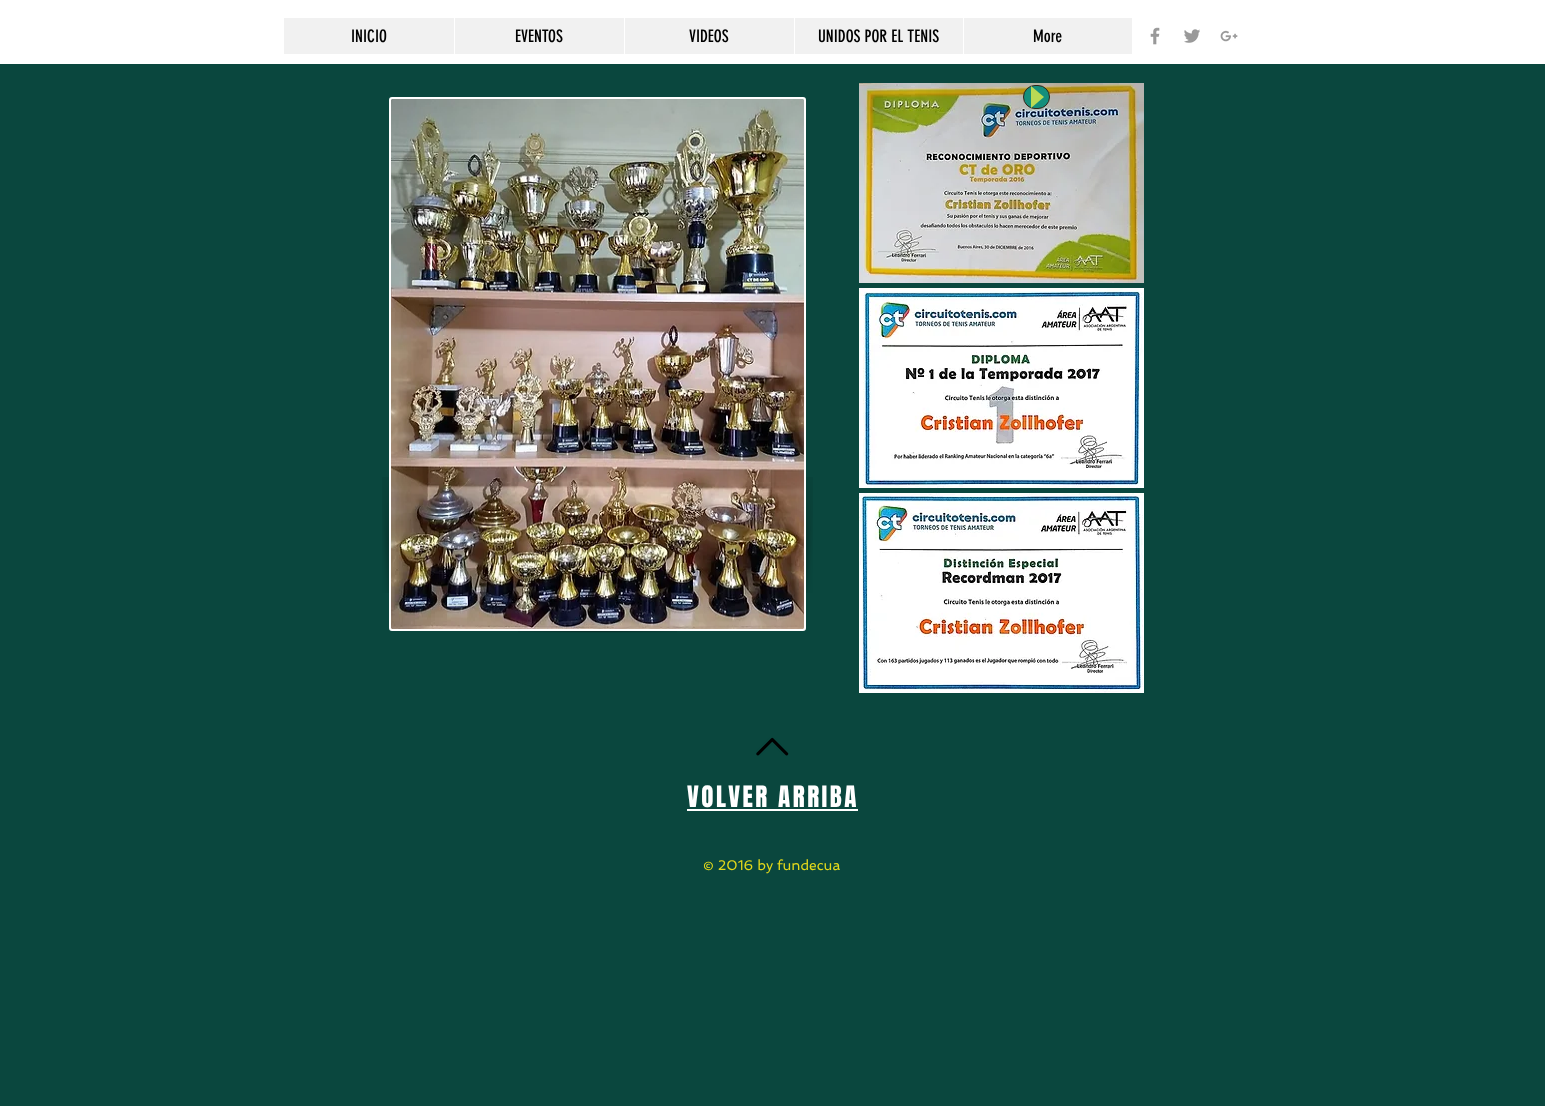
async function draw(canvas) {
	canvas.width = 1545;
	canvas.height = 1106;
	const c = canvas.getContext('2d');
	c.miterLimit = 4;
	c.fontKerning = 'normal';
	async function loadImage(src) {
		const img = new Image();
		img.src = src;
		await img.decode();
		return img;
	}

	c.fillStyle = '#0a473e';
	c.fillRect(0, 0, 1545, 1106);
	c.fillStyle = '#fff';
	c.fillRect(0, 0, 1545, 64);
	c.fillStyle = '#f1f1f1';
	c.fillRect(284, 18, 848, 36);
	c.font = '17px "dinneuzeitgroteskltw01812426"';
	c.fillStyle = '#000';
	c.fillText('INICIO', 351, 42);
	c.fillStyle = '#fff';
	c.fillRect(454, 18, 1, 36);
	c.fillStyle = '#000';
	c.fillText('EVENTOS', 515, 42);
	c.fillStyle = '#fff';
	c.fillRect(624, 18, 1, 36);
	c.fillStyle = '#000';
	c.fillText('VIDEOS', 689, 42);
	c.fillStyle = '#fff';
	c.fillRect(794, 18, 1, 36);
	c.fillStyle = '#000';
	c.fillText('UNIDOS POR EL TENIS', 818, 42);
	c.fillStyle = '#fff';
	c.fillRect(963, 18, 1, 36);
	c.fillStyle = '#000';
	c.fillText('More', 1033, 42);
	c.drawImage(await loadImage('img1.png'), 1150, 27, 10, 18);
	c.drawImage(await loadImage('img2.png'), 1184, 29, 16, 14);
	c.drawImage(await loadImage('img3.png'), 1220, 30, 18, 12);
	c.drawImage(await loadImage('img8.png'), 859, 83, 285, 200);
	c.fillStyle = '#148f7c';
	c.beginPath();
	c.roundRect(1023.5, 85.5, 26, 23, 11.5);
	c.fill();
	c.strokeStyle = '#342216';
	c.stroke();
	c.fillStyle = '#bada55';
	c.beginPath();
	c.moveTo(1031, 108);
	c.lineTo(1031, 86);
	c.lineTo(1044, 97);
	c.closePath();
	c.fill();
	c.drawImage(await loadImage('img4.png'), 382, 477, 7, 116);
	c.fillStyle = '#fff';
	c.beginPath();
	c.roundRect(390, 98, 415, 532, 2);
	c.fill();
	c.strokeStyle = '#fff';
	c.lineWidth = 2;
	c.stroke();
	c.drawImage(await loadImage('img5.png'), 391, 99, 413, 530);
	c.drawImage(await loadImage('img6.png'), 518, 631, 159, 2);
	c.drawImage(await loadImage('img7.png'), 806, 477, 7, 116);
	c.drawImage(await loadImage('img9.png'), 859, 288, 285, 200);
	c.drawImage(await loadImage('img10.png'), 859, 493, 285, 200);
	c.drawImage(await loadImage('img11.png'), 756, 737, 33, 19);
	c.letterSpacing = '2.5px';
	c.font = '25px Anton';
	c.fillText('VOLVER ARRIBA', 687, 807);
	c.fillRect(687, 809, 171, 2);
	c.letterSpacing = '0px';
	c.font = '14px Spinnaker';
	c.fillStyle = '#e3d91b';
	c.fillText('© 2016 by fundecua', 703, 870);
}

draw(document.querySelector('canvas'));
